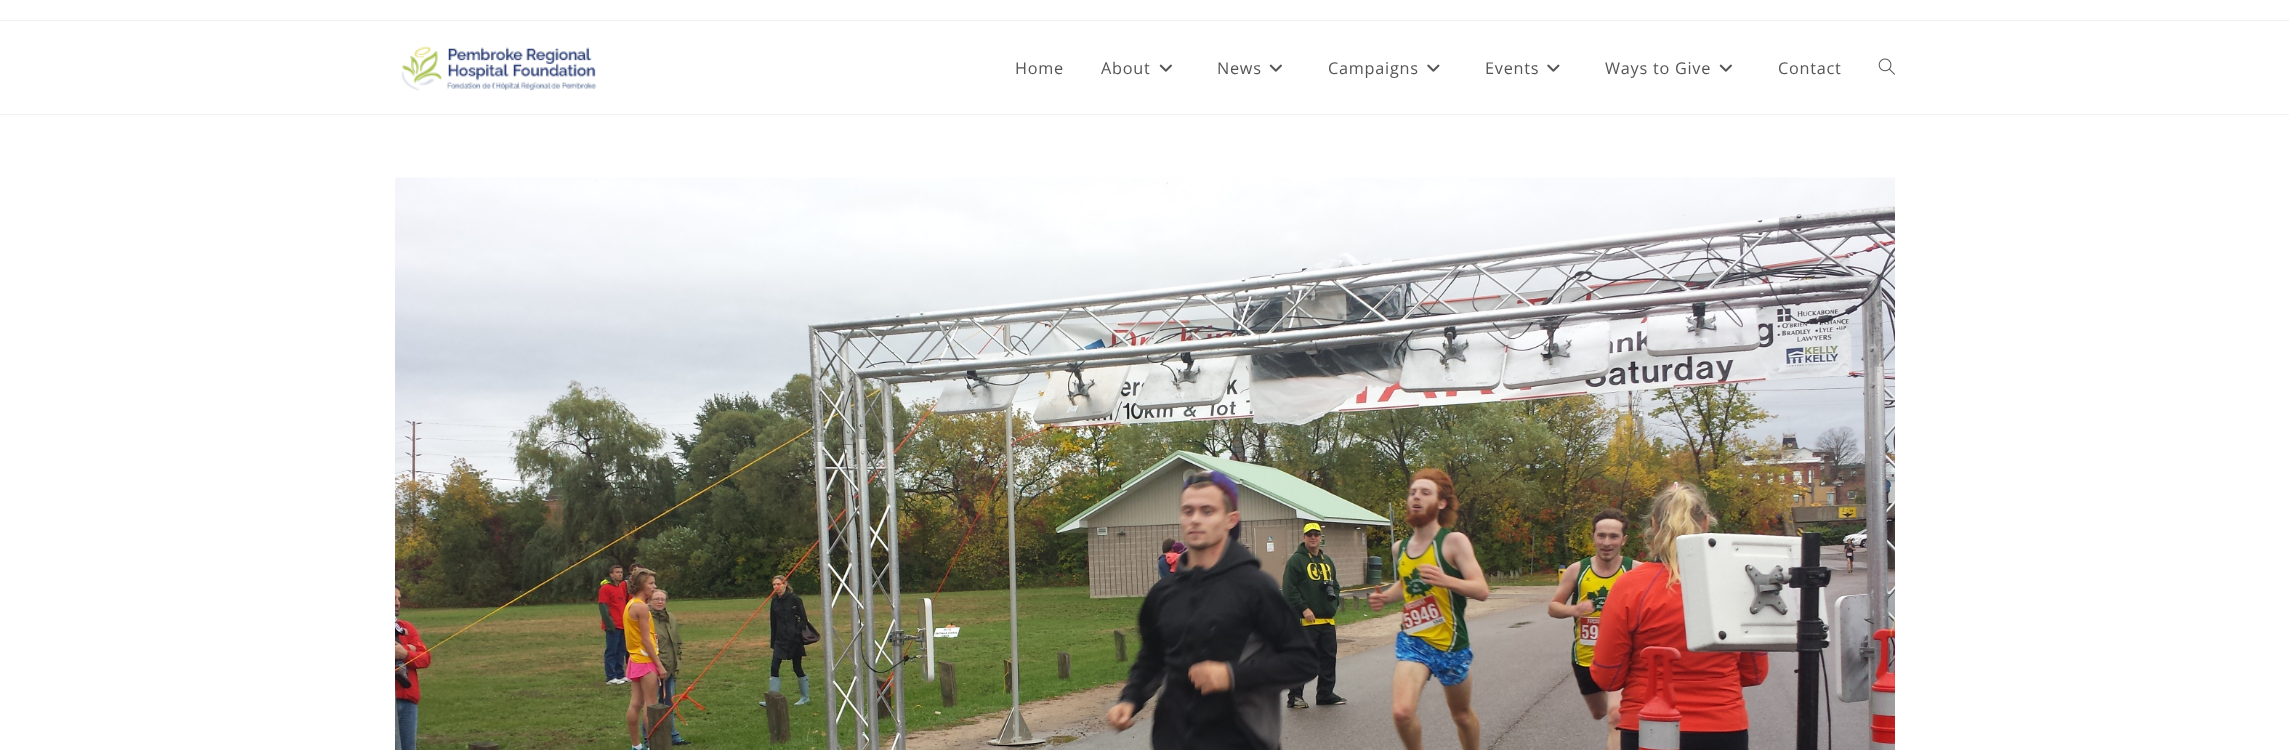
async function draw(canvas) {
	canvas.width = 2289;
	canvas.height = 750;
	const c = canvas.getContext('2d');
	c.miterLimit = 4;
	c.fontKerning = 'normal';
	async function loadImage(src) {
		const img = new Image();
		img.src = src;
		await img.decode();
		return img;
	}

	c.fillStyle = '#fff';
	c.fillRect(0, 0, 2289, 750);
	c.fillStyle = '#f1f1f1';
	c.fillRect(0, 20, 2289, 1);
	c.fillRect(0, 114, 2289, 1);
	c.drawImage(await loadImage('img1.png'), 401, 46, 196, 45);
	c.letterSpacing = '0.75px';
	c.font = '16.25px Open Sans';
	c.fillStyle = '#555';
	c.fillText('Home', 1015, 74);
	c.fillText('About', 1101, 74);
	c.drawImage(await loadImage('img2.png'), 1159, 64, 13, 8);
	c.fillText('News', 1217, 74);
	c.drawImage(await loadImage('img2.png'), 1269, 64, 13, 8);
	c.fillText('Campaigns', 1328, 74);
	c.drawImage(await loadImage('img3.png'), 1427, 64, 13, 8);
	c.fillText('Events', 1485, 74);
	c.drawImage(await loadImage('img3.png'), 1547, 64, 13, 8);
	c.fillText('Ways to Give', 1605, 74);
	c.drawImage(await loadImage('img2.png'), 1719, 64, 13, 8);
	c.fillText('Contact', 1778, 74);
	c.drawImage(await loadImage('img4.png'), 1878, 58, 17, 17);
	c.drawImage(await loadImage('img5.png'), 395, 177, 1500, 573);
}

draw(document.querySelector('canvas'));
